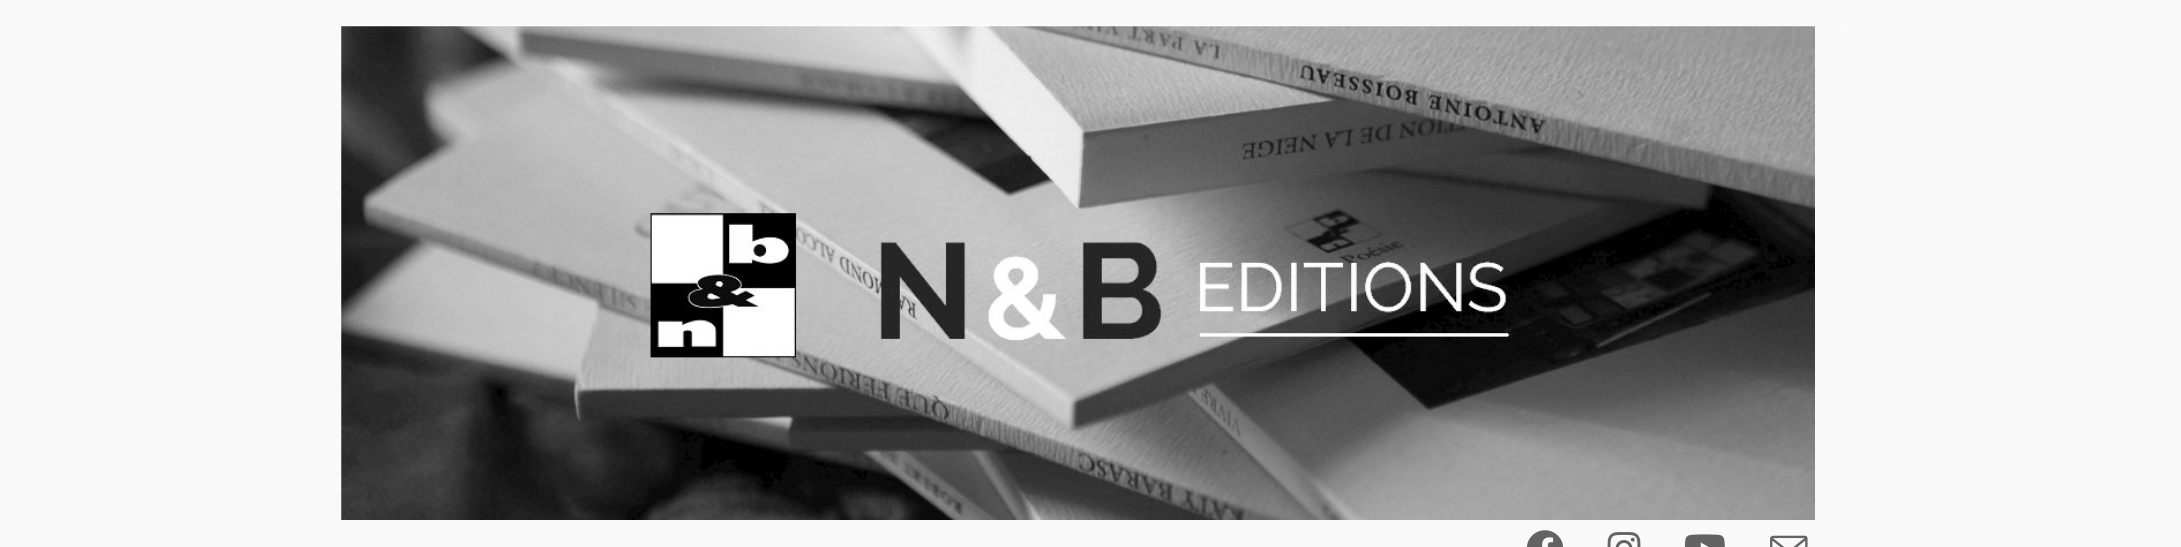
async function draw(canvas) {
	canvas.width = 2181;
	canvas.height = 547;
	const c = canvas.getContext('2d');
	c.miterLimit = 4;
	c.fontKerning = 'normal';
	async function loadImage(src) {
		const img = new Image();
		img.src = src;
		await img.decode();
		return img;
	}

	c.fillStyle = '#f9f9f9';
	c.fillRect(0, 0, 2181, 547);
	c.fillStyle = '#fff';
	c.fillRect(341, 25, 1500, 1);
	c.drawImage(await loadImage('img1.png'), 341, 26, 1474, 494);
	c.drawImage(await loadImage('img2.png'), 1526, 530, 38, 17);
	c.drawImage(await loadImage('img3.png'), 1607, 532, 34, 15);
	c.drawImage(await loadImage('img4.png'), 1684, 534, 41, 13);
	c.drawImage(await loadImage('img5.png'), 1770, 535, 38, 12);
}

draw(document.querySelector('canvas'));
